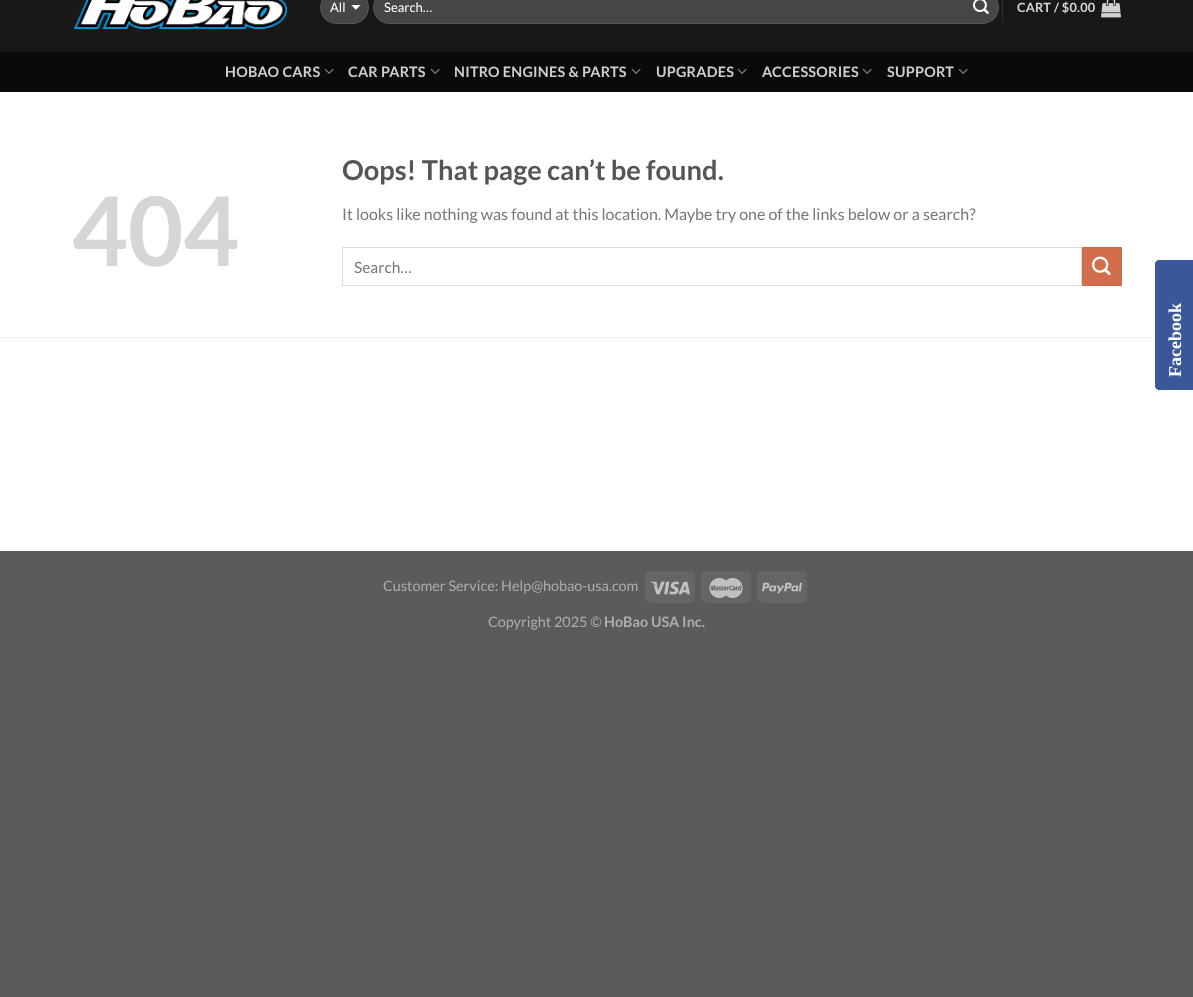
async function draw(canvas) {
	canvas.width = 1193;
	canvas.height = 997;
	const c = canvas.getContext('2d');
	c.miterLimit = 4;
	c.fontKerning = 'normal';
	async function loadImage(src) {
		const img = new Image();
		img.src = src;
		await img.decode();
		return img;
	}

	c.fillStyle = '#5b5b5b';
	c.fillRect(0, 0, 1193, 997);
	c.fillStyle = '#fff';
	c.fillRect(0, 92, 1193, 459);
	c.fillStyle = '#181818';
	c.fillRect(0, 0, 1193, 52);
	c.drawImage(await loadImage('img1.png'), 73, 0, 215, 30);
	c.fillStyle = '#464646';
	c.beginPath();
	c.roundRect(320, -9, 49, 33, 16.5);
	c.fill();
	c.drawImage(await loadImage('img2.png'), 351, 5, 10, 5);
	c.beginPath();
	c.roundRect(320.5, -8.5, 48, 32, 16);
	c.strokeStyle = '#ffffff17';
	c.stroke();
	c.font = '13px Lato';
	c.fillStyle = '#fff';
	c.fillText('All', 330, 12);
	c.fillStyle = '#464646';
	c.beginPath();
	c.roundRect(373, -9, 626, 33, 16.5);
	c.fill();
	c.beginPath();
	c.roundRect(373.5, -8.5, 625, 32, 16);
	c.stroke();
	c.fillStyle = '#fff';
	c.fillText('Search…', 384, 12);
	c.drawImage(await loadImage('img3.png'), 973, 0, 16, 14);
	c.fillStyle = '#2f2f2f';
	c.fillRect(1002, 0, 1, 22);
	c.letterSpacing = '0.25px';
	c.font = 'bold 12.75px Lato';
	c.fillStyle = '#d6d6d6';
	c.fillText('CART / $0.00', 1017, 12);
	c.drawImage(await loadImage('img4.png'), 1101, 0, 20, 18);
	c.fillStyle = '#0a0a0a';
	c.fillRect(0, 52, 1193, 40);
	c.font = 'bold 14.4px Lato';
	c.fillStyle = '#cecece';
	c.fillText('HOBAO CARS', 225, 77);
	c.drawImage(await loadImage('img5.png'), 324, 68, 10, 6);
	c.fillText('CAR PARTS', 348, 77);
	c.drawImage(await loadImage('img5.png'), 430, 68, 10, 6);
	c.fillText('NITRO ENGINES & PARTS', 454, 77);
	c.drawImage(await loadImage('img5.png'), 631, 68, 10, 6);
	c.fillText('UPGRADES', 656, 77);
	c.drawImage(await loadImage('img5.png'), 737, 68, 10, 6);
	c.fillText('ACCESSORIES', 762, 77);
	c.drawImage(await loadImage('img5.png'), 862, 68, 10, 6);
	c.fillText('SUPPORT', 887, 77);
	c.drawImage(await loadImage('img5.png'), 958, 68, 10, 6);
	c.letterSpacing = '0px';
	c.font = 'bold 96px Lato';
	c.fillStyle = '#d6d6d6';
	c.fillText('404', 72, 266);
	c.font = 'bold 27.25px Lato';
	c.fillStyle = '#555';
	c.fillText('Oops! That page can’t be found.', 342, 180);
	c.font = '16px Lato';
	c.fillStyle = '#777';
	c.fillText('It looks like nothing was found at this location. Maybe try one of the links below or a search?', 342, 220);
	c.strokeStyle = '#ddd';
	c.strokeRect(342.5, 247.5, 739, 38);
	c.font = '15.5px Lato';
	c.fillText('Search…', 354, 273);
	c.fillStyle = '#d26e4b';
	c.beginPath();
	c.rect(1082.5, 247.5, 39, 38);
	c.fill();
	c.strokeStyle = '#c86947';
	c.stroke();
	c.drawImage(await loadImage('img6.png'), 1092, 256, 19, 20);
	c.fillStyle = '#f2f2f2';
	c.fillRect(0, 337, 1155, 1);
	c.font = '14.4px Lato';
	c.fillStyle = '#adadad';
	c.fillText('Customer Service: Help@hobao-usa.com', 383, 591);
	c.fillStyle = '#656565';
	c.beginPath();
	c.roundRect(645, 571, 50, 32, 5);
	c.fill();
	c.drawImage(await loadImage('img7.png'), 650, 581, 40, 14);
	c.beginPath();
	c.roundRect(701, 571, 50, 32, 5);
	c.fill();
	c.drawImage(await loadImage('img8.png'), 709, 578, 34, 20);
	c.beginPath();
	c.roundRect(757, 571, 50, 32, 5);
	c.fill();
	c.drawImage(await loadImage('img9.png'), 762, 582, 40, 12);
	c.fillStyle = '#adadad';
	c.fillText('Copyright 2025 ©', 488, 627);
	c.font = 'bold 14.4px Lato';
	c.fillText('HoBao USA Inc.', 604, 627);
	c.fillStyle = '#3a5897';
	c.beginPath();
	c.moveTo(1159, 260.5);
	c.lineTo(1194.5, 260.5);
	c.lineTo(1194.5, 389.5);
	c.lineTo(1159, 389.5);
	c.bezierCurveTo(1157, 389.5, 1155.5, 388, 1155.5, 386);
	c.lineTo(1155.5, 264);
	c.bezierCurveTo(1155.5, 262, 1157, 260.5, 1159, 260.5);
	c.closePath();
	c.fill();
	c.strokeStyle = '#3a5897';
	c.stroke();
	c.font = 'bold 18px Liberation Serif';
	c.fillStyle = '#fff';
	c.save();
	c.translate(1181, 377);
	c.rotate(-90 * Math.PI / 180);
	c.fillText('Facebook', 0, 0);
	c.restore();
}

draw(document.querySelector('canvas'));
